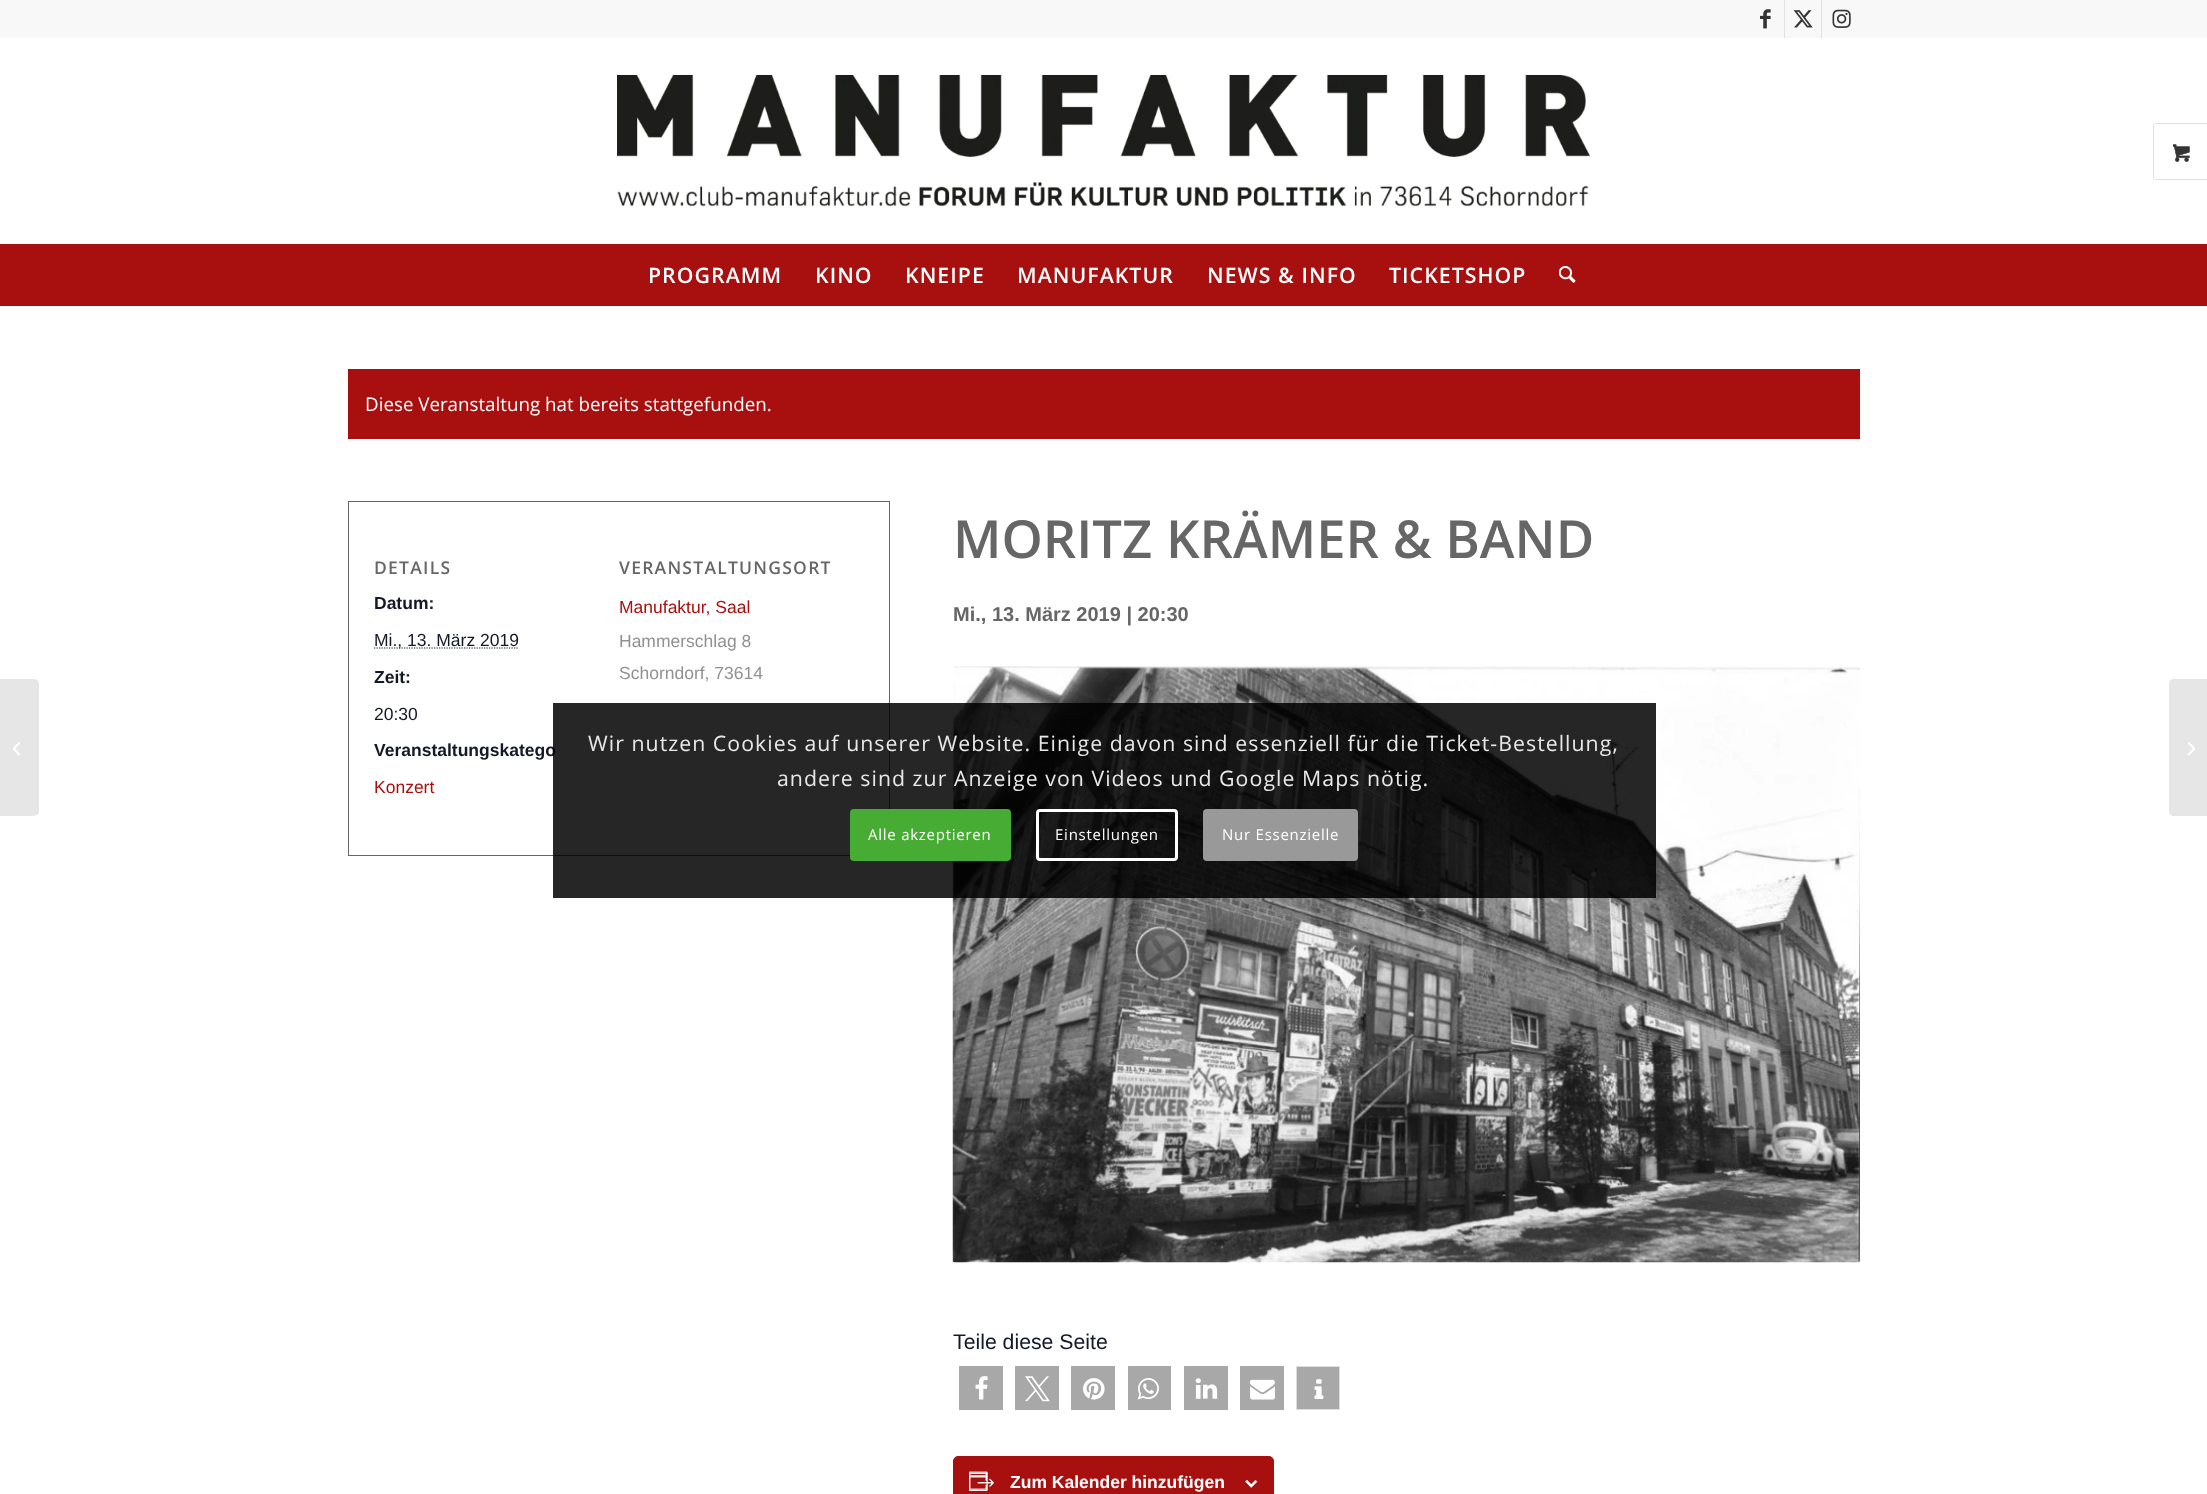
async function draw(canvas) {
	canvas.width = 2207;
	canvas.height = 1494;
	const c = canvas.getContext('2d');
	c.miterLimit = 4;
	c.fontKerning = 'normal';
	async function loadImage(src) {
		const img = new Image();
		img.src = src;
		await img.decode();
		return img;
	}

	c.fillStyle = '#fff';
	c.fillRect(0, 0, 2207, 1494);
	c.fillStyle = '#f8f8f8';
	c.fillRect(0, 0, 2207, 38);
	c.fillStyle = '#e1e1e1';
	c.fillRect(1784, 0, 1, 38);
	c.drawImage(await loadImage('img1.png'), 1760, 9, 11, 20);
	c.fillRect(1821, 0, 1, 38);
	c.drawImage(await loadImage('img2.png'), 1793, 10, 20, 18);
	c.drawImage(await loadImage('img3.png'), 1832, 9, 19, 19);
	c.drawImage(await loadImage('img4.png'), 617, 74, 973, 133);
	c.beginPath();
	c.roundRect(2153.5, 123.5, 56, 56, 2);
	c.strokeStyle = '#e1e1e1';
	c.stroke();
	c.fillStyle = '#fff';
	c.fillRect(2154, 124, 1, 55);
	c.drawImage(await loadImage('img5.png'), 2173, 144, 17, 18);
	c.fillStyle = '#a81010';
	c.fillRect(0, 244, 2207, 62);
	c.letterSpacing = '1.05px';
	c.font = '600 21.25px Open Sans';
	c.fillStyle = '#fff';
	for (const [text, x, y] of [
		['PROGRAMM', 648, 283],
		['KINO', 815, 283],
		['KNEIPE', 905, 283],
		['MANUFAKTUR', 1017, 283],
		['NEWS & INFO', 1207, 283],
		['TICKETSHOP', 1389, 283],
	]) {
		c.fillText(text, x, y);
	}
	c.drawImage(await loadImage('img6.png'), 1559, 266, 17, 17);
	c.fillStyle = '#e6e6e6';
	c.beginPath();
	c.roundRect(0, 679, 39, 137, [0, 5, 5, 0]);
	c.fill();
	c.drawImage(await loadImage('img7.png'), 13, 742, 7, 14);
	c.fillStyle = '#a81010';
	c.fillRect(348, 369, 1512, 70);
	c.letterSpacing = '0px';
	c.font = '18.75px Open Sans';
	c.fillStyle = '#fff';
	c.fillText('Diese Veranstaltung hat bereits stattgefunden.', 365, 411);
	c.strokeStyle = '#666';
	c.strokeRect(348.5, 501.5, 541, 354);
	c.letterSpacing = '1.25px';
	c.font = '600 17.5px Open Sans';
	c.fillStyle = '#666';
	c.fillText('DETAILS', 374, 574);
	c.letterSpacing = '0px';
	c.font = 'bold 17.5px Liberation Sans';
	c.fillStyle = '#141827';
	c.fillText('Datum:', 374, 609);
	c.beginPath();
	c.moveTo(374, 648);
	c.lineTo(518.5, 648);
	c.strokeStyle = '#141827';
	c.lineWidth = 1.2;
	c.setLineDash([1.25, 1.25]);
	c.stroke();
	c.font = '17.5px Liberation Sans';
	c.fillText('Mi., 13. März 2019', 374, 646);
	c.font = 'bold 17.5px Liberation Sans';
	c.fillText('Zeit:', 374, 683);
	c.font = '17.5px Liberation Sans';
	c.fillText('20:30', 374, 720);
	c.font = 'bold 17.5px Liberation Sans';
	c.fillText('Veranstaltungskatego', 374, 756);
	c.font = '17.5px Liberation Sans';
	c.fillStyle = '#a81010';
	c.fillText('Konzert', 374, 793);
	c.letterSpacing = '1.25px';
	c.font = '600 17.5px Open Sans';
	c.fillStyle = '#666';
	c.fillText('VERANSTALTUNGSORT', 619, 574);
	c.letterSpacing = '0px';
	c.font = '17.5px Liberation Sans';
	c.fillStyle = '#a81010';
	c.fillText('Manufaktur, Saal', 619, 613);
	c.fillStyle = '#919191';
	c.fillText('Hammerschlag 8', 619, 647);
	c.fillText('Schorndorf, 73614', 619, 679);
	c.font = '600 52.5px Open Sans';
	c.fillStyle = '#666';
	c.fillText('MORITZ KRÄMER & BAND', 953, 558);
	c.font = 'bold 20px Liberation Sans';
	c.fillText('Mi., 13. März 2019 | 20:30', 953, 621);
	c.drawImage(await loadImage('img8.png'), 952, 666, 908, 597);
	c.font = '21.25px Liberation Sans';
	c.fillStyle = '#141827';
	c.fillText('Teile diese Seite', 953, 1349);
	c.fillStyle = '#a8a8a8';
	c.beginPath();
	c.roundRect(959, 1366, 44, 44, 0.5);
	c.fill();
	c.drawImage(await loadImage('img9.png'), 975, 1376, 13, 24);
	c.beginPath();
	c.roundRect(1015, 1366, 44, 44, 0.5);
	c.fill();
	c.drawImage(await loadImage('img10.png'), 1025, 1376, 25, 26);
	c.beginPath();
	c.roundRect(1071, 1366, 44, 44, 0.5);
	c.fill();
	c.drawImage(await loadImage('img11.png'), 1083, 1378, 22, 22);
	c.beginPath();
	c.roundRect(1128, 1366, 43, 44, 0.5);
	c.fill();
	c.drawImage(await loadImage('img12.png'), 1137, 1378, 22, 22);
	c.beginPath();
	c.roundRect(1184, 1366, 44, 44, 0.5);
	c.fill();
	c.drawImage(await loadImage('img13.png'), 1195, 1378, 23, 21);
	c.beginPath();
	c.roundRect(1240, 1366, 44, 44, 0.5);
	c.fill();
	c.drawImage(await loadImage('img14.png'), 1249, 1379, 26, 21);
	c.beginPath();
	c.rect(1296.5, 1366.5, 43, 43);
	c.fill();
	c.strokeStyle = '#ddd';
	c.lineWidth = 1;
	c.setLineDash([]);
	c.stroke();
	c.drawImage(await loadImage('img15.png'), 1314, 1379, 10, 20);
	c.fillStyle = '#a81010';
	c.beginPath();
	c.roundRect(953.5, 1456.5, 320, 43, 4.5);
	c.fill();
	c.strokeStyle = '#a81010';
	c.stroke();
	c.drawImage(await loadImage('img16.png'), 969, 1471, 25, 20);
	c.font = 'bold 17.5px Liberation Sans';
	c.fillStyle = '#fff';
	c.fillText('Zum Kalender hinzufügen', 1010, 1488);
	c.drawImage(await loadImage('img17.png'), 1245, 1480, 13, 8);
	c.fillStyle = '#e6e6e6';
	c.beginPath();
	c.moveTo(2174, 679);
	c.lineTo(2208, 679);
	c.lineTo(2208, 816);
	c.lineTo(2174, 816);
	c.bezierCurveTo(2171, 816, 2169, 814, 2169, 811);
	c.lineTo(2169, 684);
	c.bezierCurveTo(2169, 681, 2171, 679, 2174, 679);
	c.closePath();
	c.fill();
	c.drawImage(await loadImage('img18.png'), 2188, 742, 7, 14);
	c.fillStyle = '#000000d9';
	c.fillRect(553, 703, 1103, 195);
	c.letterSpacing = '1.05px';
	c.font = '21.25px Open Sans';
	c.fillStyle = '#e8e8e8';
	c.fillText('Wir nutzen Cookies auf unserer Website. Einige davon sind essenziell für die Ticket-Bestellung,', 588, 751);
	c.fillText('andere sind zur Anzeige von Videos und Google Maps nötig.', 777, 786);
	c.fillStyle = '#46ac34';
	c.beginPath();
	c.roundRect(850, 809, 161, 52, 4);
	c.fill();
	c.letterSpacing = '0.75px';
	c.font = '15px Open Sans';
	c.fillStyle = '#fff';
	c.fillText('Alle akzeptieren', 868, 840);
	c.beginPath();
	c.roundRect(1037.5, 810.5, 139, 49, 2.5);
	c.strokeStyle = '#fff';
	c.lineWidth = 3;
	c.stroke();
	c.fillText('Einstellungen', 1055, 840);
	c.fillStyle = '#999';
	c.beginPath();
	c.roundRect(1204.5, 810.5, 152, 49, 2.5);
	c.fill();
	c.strokeStyle = '#999';
	c.stroke();
	c.fillStyle = '#fff';
	c.fillText('Nur Essenzielle', 1222, 840);
}

draw(document.querySelector('canvas'));
